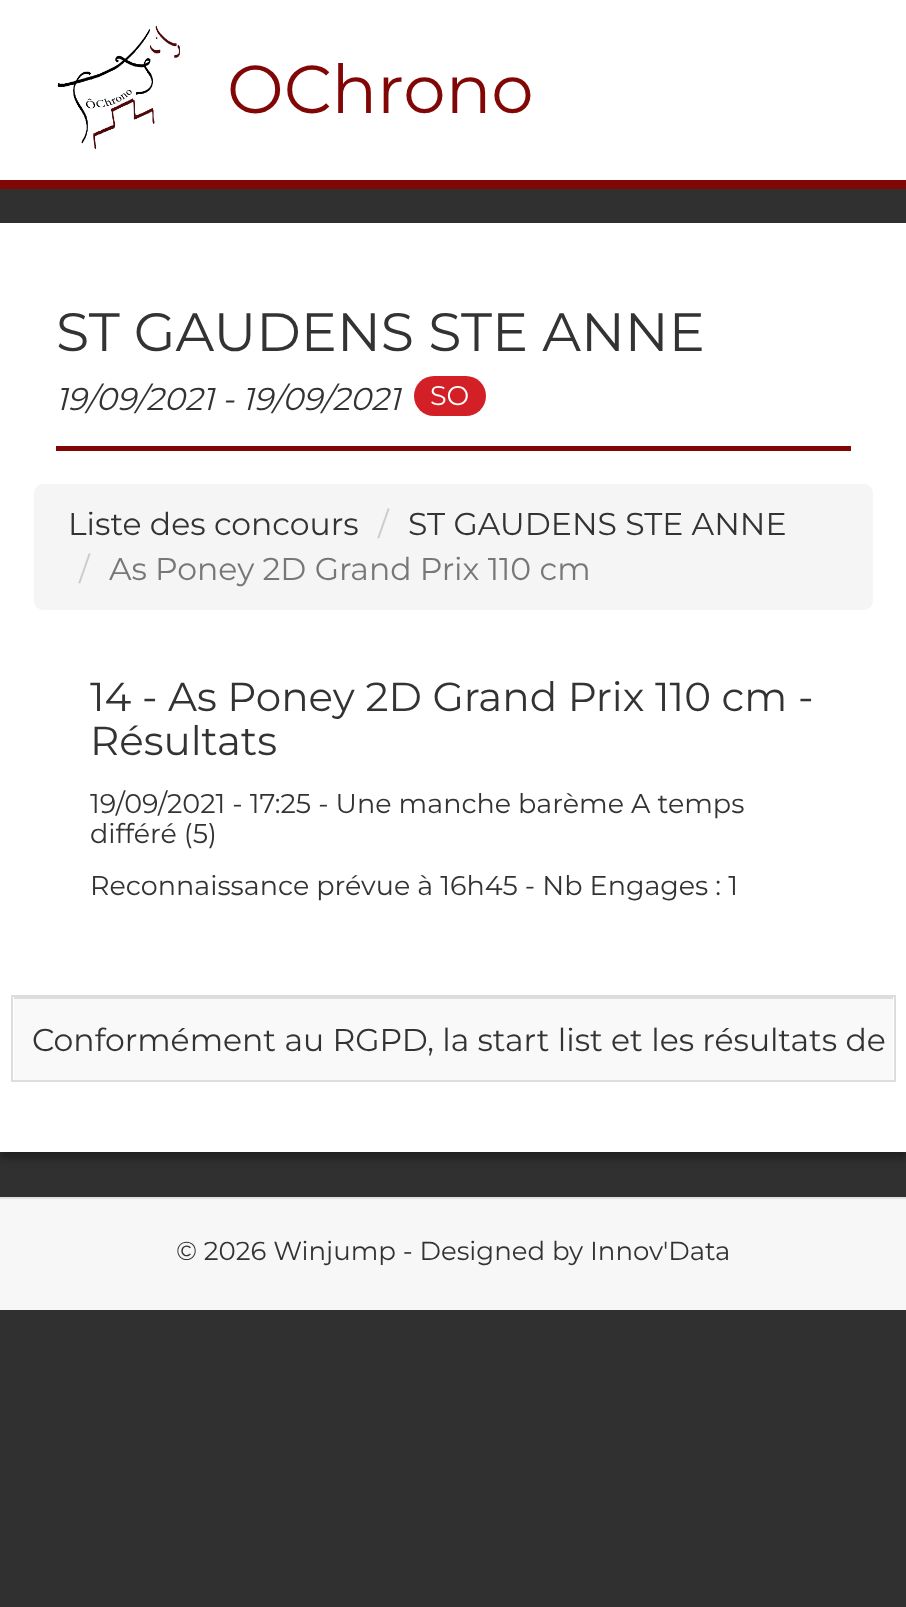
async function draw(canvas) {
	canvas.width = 906;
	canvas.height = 1607;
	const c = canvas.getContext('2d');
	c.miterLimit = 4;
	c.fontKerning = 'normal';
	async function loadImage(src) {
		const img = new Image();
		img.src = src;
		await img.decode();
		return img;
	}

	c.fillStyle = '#303030';
	c.fillRect(0, 0, 906, 1607);
	c.fillStyle = '#fff';
	c.fillRect(0, 0, 906, 180);
	c.fillStyle = '#810706';
	c.fillRect(0, 180, 906, 9);
	c.drawImage(await loadImage('img1.png'), 57, 25, 123, 124);
	c.font = '67.5px Montserrat';
	c.fillText('OChrono', 227, 113);
	c.fillStyle = '#0000004d';
	c.filter = 'blur(3.5px)';
	c.beginPath();
	c.rect(0, 230, 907, 929);
	c.fill();
	c.filter = 'none';
	c.fillStyle = '#fff';
	c.fillRect(0, 223, 906, 929);
	c.fillStyle = '#810706';
	c.fillRect(56, 446, 795, 5);
	c.font = '54px Montserrat';
	c.fillStyle = '#333';
	c.fillText('ST GAUDENS STE ANNE', 56, 351);
	c.font = 'italic 31.5px Montserrat';
	c.fillText('19/09/2021 - 19/09/2021', 56, 410);
	c.fillStyle = '#d22026';
	c.beginPath();
	c.roundRect(414, 376, 72, 40, 20);
	c.fill();
	c.font = '27px Montserrat';
	c.fillStyle = '#fff';
	c.fillText('SO', 430, 405);
	c.fillStyle = '#f5f5f5';
	c.beginPath();
	c.roundRect(34, 484, 839, 126, 9);
	c.fill();
	c.font = '31.5px Montserrat';
	c.fillStyle = '#333';
	c.fillText('Liste des concours', 68, 535);
	c.fillStyle = '#ccc';
	c.fillText('/', 378, 535);
	c.fillStyle = '#333';
	c.fillText('ST GAUDENS STE ANNE', 408, 535);
	c.fillStyle = '#ccc';
	c.fillText('/', 79, 580);
	c.fillStyle = '#777';
	c.fillText('As Poney 2D Grand Prix 110 cm', 109, 580);
	c.font = '40.5px Montserrat';
	c.fillStyle = '#333';
	c.fillText('14 - As Poney 2D Grand Prix 110 cm -', 90, 711);
	c.fillText('Résultats', 90, 755);
	c.font = '27px Montserrat';
	for (const [text, x, y] of [
		['19/09/2021 - 17:25 - Une manche barème A temps', 90, 813],
		['différé (5)', 90, 843],
		['Reconnaissance prévue à 16h45 - Nb Engages : 1', 90, 895],
	]) {
		c.fillText(text, x, y);
	}
	c.strokeStyle = '#ddd';
	c.lineWidth = 2;
	c.strokeRect(12, 996, 883, 85);
	c.fillStyle = '#f9f9f9';
	c.fillRect(14, 999, 879, 81);
	c.fillStyle = '#ddd';
	c.fillRect(14, 997, 879, 2);
	c.font = '31.5px Montserrat';
	c.fillStyle = '#333';
	c.fillText('Conformément au RGPD, la start list et les résultats de', 32, 1051);
	c.fillStyle = '#f7f7f7';
	c.fillRect(0, 1199, 906, 111);
	c.fillStyle = '#dfdfdf';
	c.fillRect(0, 1197, 906, 2);
	c.font = '26px Montserrat';
	c.fillStyle = '#333';
	c.fillText('© 2026 Winjump - Designed by', 176, 1260);
	c.fillText('Innov\'Data', 590, 1260);
}

draw(document.querySelector('canvas'));
